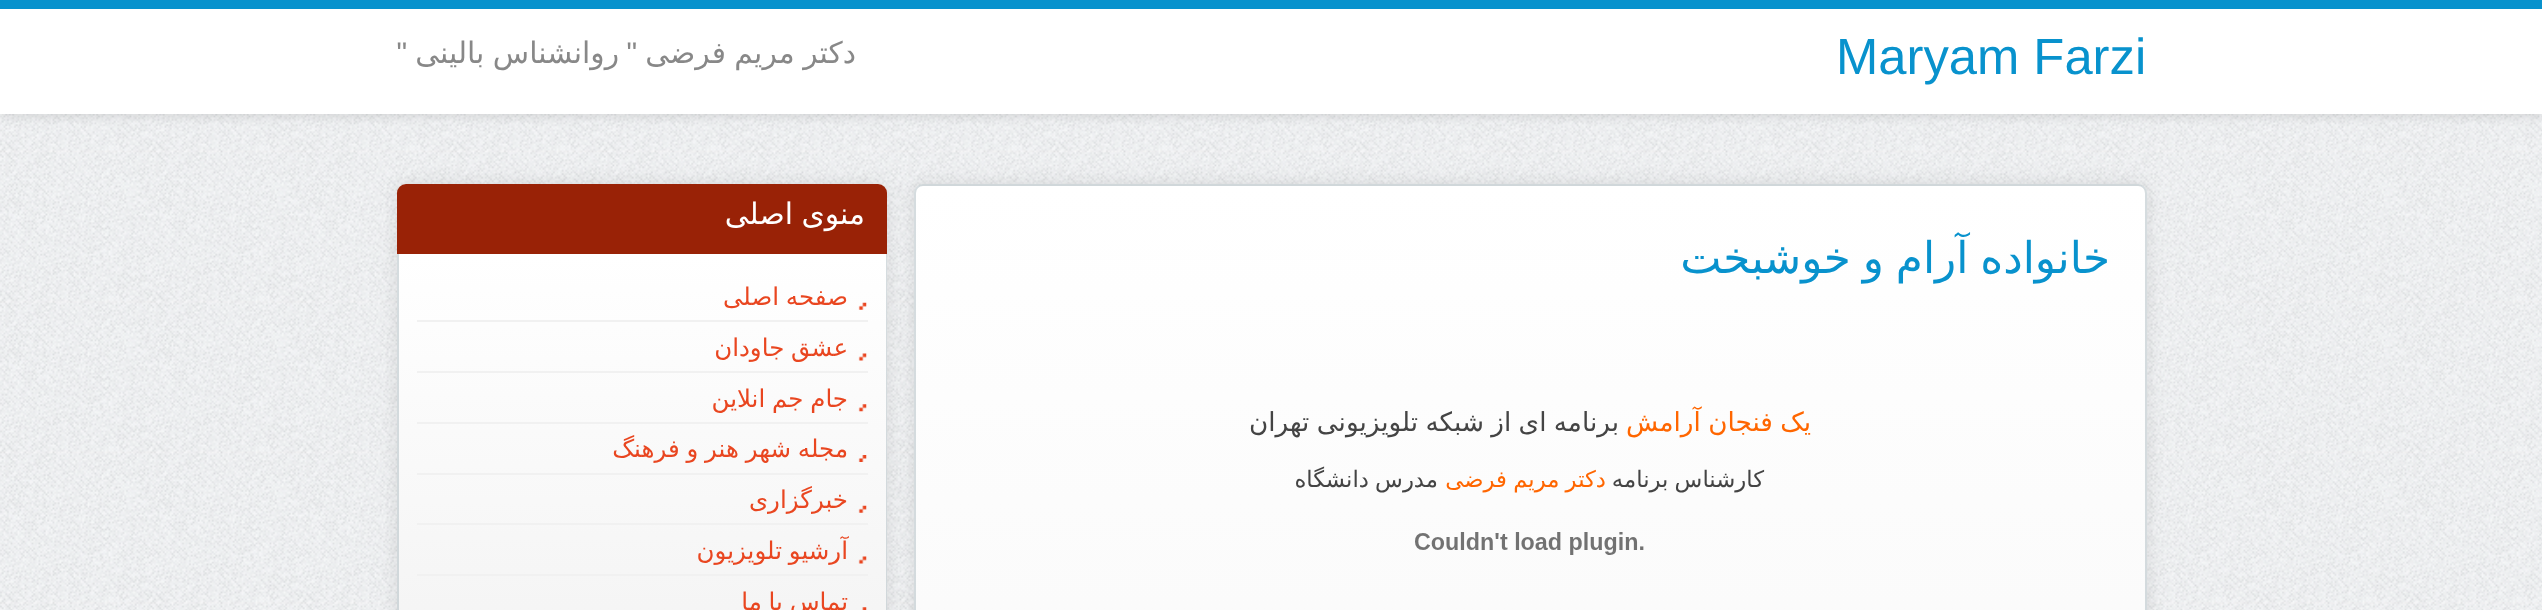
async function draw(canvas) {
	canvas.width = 2542;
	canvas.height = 610;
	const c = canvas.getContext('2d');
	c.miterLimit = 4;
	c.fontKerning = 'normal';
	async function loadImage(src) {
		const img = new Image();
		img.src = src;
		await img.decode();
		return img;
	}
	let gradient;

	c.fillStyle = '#fff';
	c.fillRect(0, 0, 2542, 610);
	c.drawImage(await loadImage('img1.png'), 0, 114, 2542, 496);
	c.fillStyle = '#0000001a';
	c.filter = 'blur(5px)';
	c.beginPath();
	c.rect(0, 4, 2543, 113);
	c.fill();
	c.filter = 'none';
	c.fillStyle = '#fff';
	c.fillRect(0, 9, 2542, 105);
	c.fillStyle = '#0892cd';
	c.fillRect(0, 0, 2542, 9);
	c.font = '50.75px Liberation Sans';
	c.fillText('Maryam Farzi', 1836, 74);
	c.wordSpacing = '-1px';
	c.direction = 'rtl';
	c.font = '29.75px DejaVu Sans';
	c.fillStyle = '#888';
	c.fillText('دکتر مریم فرضی', 856, 63);
	c.wordSpacing = '0px';
	c.font = '29.75px Liberation Sans';
	c.fillText('"', 637, 63);
	c.wordSpacing = '-1px';
	c.font = '29.75px DejaVu Sans';
	c.fillText('روانشناس بالینی', 619, 63);
	c.wordSpacing = '0px';
	c.font = '29.75px Liberation Sans';
	c.fillText('"', 407, 63);
	c.fillStyle = '#0000001a';
	c.filter = 'blur(9px)';
	c.beginPath();
	c.roundRect(397, 184, 490, 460, 9);
	c.fill();
	c.filter = 'none';
	c.fillStyle = '#992206';
	c.beginPath();
	c.roundRect(397, 184, 490, 70, [9, 9, 0, 0]);
	c.fill();
	gradient = c.createLinearGradient(642, 254, 642, 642);
	gradient.addColorStop(0, '#fff');
	gradient.addColorStop(1, '#f4f4f4');
	c.fillStyle = gradient;
	c.fillRect(397, 254, 490, 356);
	c.fillStyle = '#acbac080';
	c.beginPath();
	c.moveTo(397, 254);
	c.lineTo(887, 254);
	c.lineTo(887, 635);
	c.bezierCurveTo(887, 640, 883, 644, 878, 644);
	c.lineTo(406, 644);
	c.bezierCurveTo(401, 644, 397, 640, 397, 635);
	c.closePath();
	c.moveTo(399, 254);
	c.lineTo(886, 254);
	c.lineTo(886, 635);
	c.bezierCurveTo(886, 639, 882, 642, 878, 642);
	c.lineTo(406, 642);
	c.bezierCurveTo(402, 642, 399, 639, 399, 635);
	c.closePath();
	c.fill('evenodd');
	c.fillStyle = '#0000001a';
	c.filter = 'blur(9px)';
	c.beginPath();
	c.roundRect(914, 184, 1233, 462, 9);
	c.fill();
	c.filter = 'none';
	c.save();
	c.beginPath();
	c.roundRect(914, 184, 1233, 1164, 9);
	c.clip();
	gradient = c.createLinearGradient(1530, -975, 1530, 186);
	gradient.addColorStop(0, '#fff');
	gradient.addColorStop(1, '#f4f4f4');
	c.fillStyle = gradient;
	c.fillRect(914, 184, 1233, 2);
	gradient = c.createLinearGradient(1530, 185, 1530, 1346);
	gradient.addColorStop(0, '#fff');
	gradient.addColorStop(1, '#f4f4f4');
	c.fillStyle = gradient;
	c.fillRect(914, 186, 1233, 424);
	c.restore();
	c.beginPath();
	c.roundRect(915, 185, 1231, 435, 8);
	c.strokeStyle = '#acbac080';
	c.lineWidth = 2;
	c.stroke();
	c.wordSpacing = '-2px';
	c.font = '43.75px DejaVu Sans';
	c.fillStyle = '#0892cd';
	c.fillText('خانواده آرام و خوشبخت', 2110, 273);
	c.wordSpacing = '-1px';
	c.font = '26.25px DejaVu Sans';
	c.fillStyle = '#f60';
	c.fillText('یک فنجان آرامش', 1811, 431);
	c.fillStyle = '#444';
	c.fillText('برنامه ای از شبکه تلویزیونی تهران', 1619, 431);
	c.font = '22.75px DejaVu Sans';
	c.fillText('کارشناس برنامه', 1764, 487);
	c.fillStyle = '#f60';
	c.fillText('دکتر مریم فرضی', 1606, 487);
	c.fillStyle = '#444';
	c.fillText('مدرس دانشگاه', 1438, 487);
	c.drawImage(await loadImage('img2.png'), 1415, 532, 229, 23);
	c.font = '29.75px DejaVu Sans';
	c.fillStyle = '#fff';
	c.fillText('منوی اصلی', 865, 224);
	c.fillStyle = '#f1f1f1';
	c.fillRect(417, 320, 451, 2);
	c.drawImage(await loadImage('img3.png'), 858, 302, 9, 8);
	c.font = '24.5px DejaVu Sans';
	c.fillStyle = '#e94620';
	c.fillText('صفحه اصلی', 848, 305);
	c.fillStyle = '#f1f1f1';
	c.fillRect(417, 371, 451, 2);
	c.drawImage(await loadImage('img4.png'), 858, 353, 9, 8);
	c.fillStyle = '#e94620';
	c.fillText('عشق جاودان', 848, 356);
	c.fillStyle = '#f1f1f1';
	c.fillRect(417, 422, 451, 2);
	c.drawImage(await loadImage('img5.png'), 858, 404, 9, 8);
	c.fillStyle = '#e94620';
	c.fillText('جام جم انلاین', 848, 407);
	c.fillStyle = '#f1f1f1';
	c.fillRect(417, 473, 451, 2);
	c.drawImage(await loadImage('img6.png'), 858, 455, 9, 7);
	c.fillStyle = '#e94620';
	c.fillText('مجله شهر هنر و فرهنگ', 848, 457);
	c.fillStyle = '#f1f1f1';
	c.fillRect(417, 523, 451, 2);
	c.drawImage(await loadImage('img7.png'), 858, 505, 9, 8);
	c.wordSpacing = '0px';
	c.fillStyle = '#e94620';
	c.fillText('خبرگزاری', 848, 508);
	c.fillStyle = '#f1f1f1';
	c.fillRect(417, 574, 451, 2);
	c.drawImage(await loadImage('img8.png'), 858, 556, 9, 8);
	c.wordSpacing = '-1px';
	c.fillStyle = '#e94620';
	c.fillText('آرشیو تلویزیون', 848, 559);
	c.drawImage(await loadImage('img9.png'), 862, 607, 5, 3);
	c.fillText('تماس با ما', 848, 610);
}

draw(document.querySelector('canvas'));
